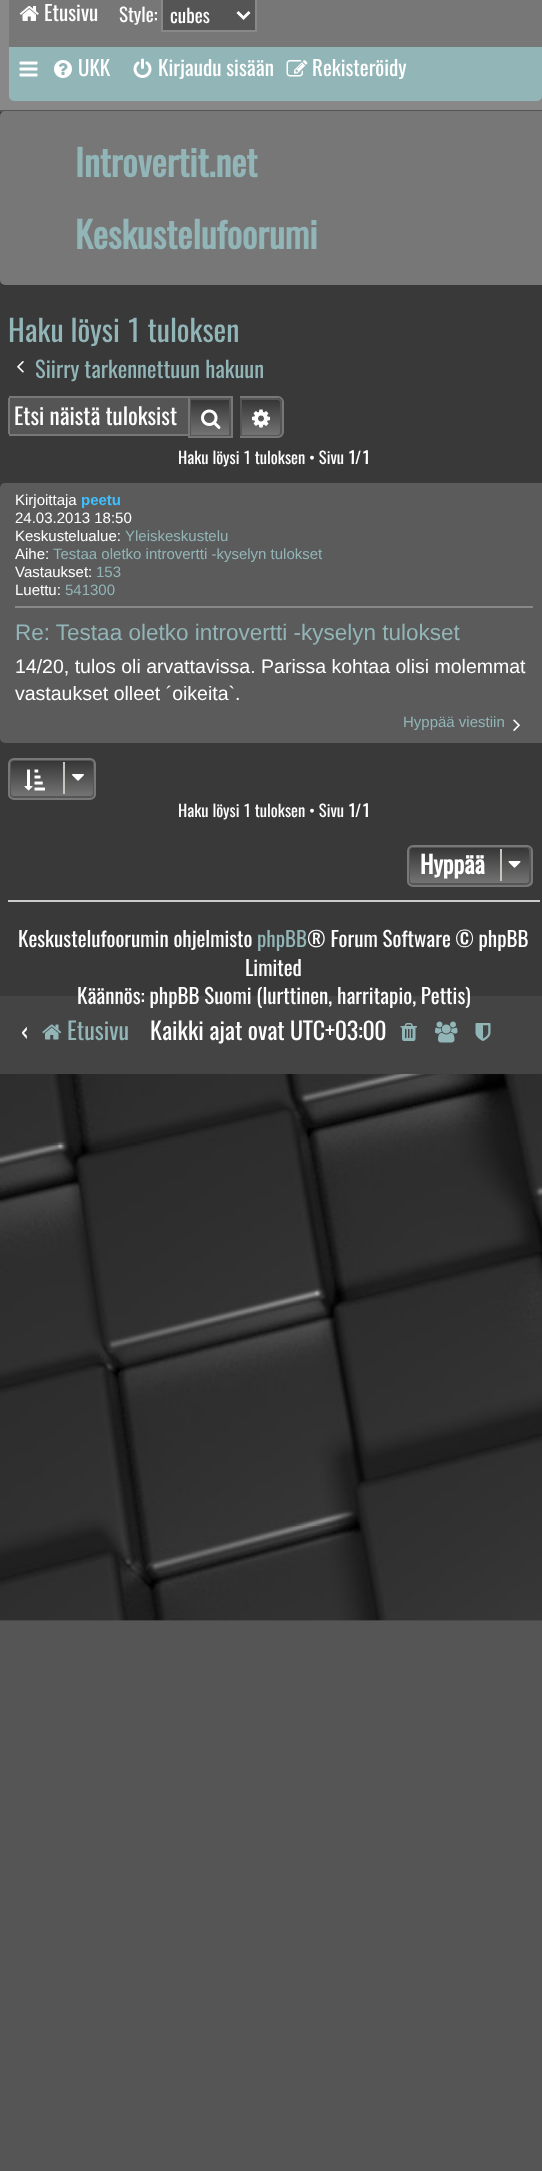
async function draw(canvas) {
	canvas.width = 542;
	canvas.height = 2171;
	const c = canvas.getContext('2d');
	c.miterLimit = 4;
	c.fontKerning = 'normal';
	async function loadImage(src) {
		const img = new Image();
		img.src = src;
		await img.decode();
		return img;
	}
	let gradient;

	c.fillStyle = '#555';
	c.fillRect(0, 0, 542, 2171);
	c.drawImage(await loadImage('img1.png'), 0, 1619, 542, 2);
	c.drawImage(await loadImage('img2.png'), 0, 1074, 542, 547);
	c.fillStyle = '#888';
	c.fillRect(0, 0, 542, 110);
	c.fillStyle = '#777';
	c.fillRect(9, 0, 533, 47);
	c.drawImage(await loadImage('img3.png'), 19, 6, 20, 15);
	c.font = '21px Oswald';
	c.fillStyle = '#fff';
	c.fillText('Etusivu', 44, 21);
	c.font = '19px Oswald';
	c.fillText('Style:', 119, 22);
	c.fillStyle = '#555';
	c.beginPath();
	c.rect(162, -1, 94, 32);
	c.fill();
	c.strokeStyle = '#888';
	c.lineWidth = 2;
	c.stroke();
	c.beginPath();
	c.moveTo(237.5, 12);
	c.lineTo(243.5, 18);
	c.lineTo(249.5, 12);
	c.strokeStyle = '#fff';
	c.lineWidth = 3;
	c.stroke();
	c.fillStyle = '#fff';
	c.fillText('cubes', 170, 23);
	c.fillStyle = '#92b5b8';
	c.beginPath();
	c.roundRect(9, 47, 533, 54, [0, 0, 5, 5]);
	c.fill();
	c.drawImage(await loadImage('img4.png'), 19, 61, 19, 16);
	c.drawImage(await loadImage('img5.png'), 54, 60, 18, 18);
	c.font = '21px Oswald';
	c.fillStyle = '#fff';
	c.fillText('UKK', 78, 76);
	c.drawImage(await loadImage('img6.png'), 133, 58, 19, 20);
	c.fillText('Kirjaudu sisään', 158, 76);
	c.drawImage(await loadImage('img7.png'), 286, 60, 22, 17);
	c.fillText('Rekisteröidy', 312, 76);
	c.fillStyle = '#393939';
	c.fillRect(0, 112, 542, 884);
	c.fillStyle = '#777';
	c.beginPath();
	c.roundRect(0, 111, 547, 174, 5);
	c.fill();
	c.font = 'bold 36px Oswald';
	c.fillStyle = '#92b5b8';
	c.fillText('Introvertit.net', 75, 177);
	c.fillText('Keskustelufoorumi', 75, 249);
	c.font = '30px Oswald';
	c.fillText('Haku löysi 1 tuloksen', 8, 342);
	c.drawImage(await loadImage('img8.png'), 17, 361, 7, 12);
	c.font = '22.5px Oswald';
	c.fillText('Siirry tarkennettuun hakuun', 35, 378);
	for (const [x, y, w, h, color] of [
		[10, 398, 178, 36, '#555'],
		[9, 396, 179, 2, '#777'],
		[9, 434, 179, 2, '#777'],
		[8, 398, 2, 36, '#777'],
	]) {
		c.fillStyle = color;
		c.fillRect(x, y, w, h);
	}
	c.font = '23px Oswald';
	c.fillStyle = '#fff';
	c.fillText('Etsi näistä tuloksist', 14, 425);
	gradient = c.createLinearGradient(210, 398, 210, 437);
	gradient.addColorStop(0, '#333');
	gradient.addColorStop(1, '#777');
	c.fillStyle = gradient;
	c.fillRect(191, 403, 38, 32);
	c.strokeStyle = '#555';
	c.lineWidth = 2;
	c.strokeRect(190, 399, 40, 37);
	c.strokeStyle = '#777';
	c.strokeRect(189, 397, 43, 40);
	c.drawImage(await loadImage('img9.png'), 201, 409, 20, 20);
	gradient = c.createLinearGradient(261, 398, 261, 437);
	gradient.addColorStop(0, '#333');
	gradient.addColorStop(1, '#777');
	c.fillStyle = gradient;
	c.beginPath();
	c.roundRect(241, 399, 40, 37, [0, 4, 4, 0]);
	c.fill();
	c.strokeStyle = '#555';
	c.stroke();
	c.fillStyle = '#777';
	c.beginPath();
	c.moveTo(240, 396);
	c.lineTo(278, 396);
	c.bezierCurveTo(281, 396, 284, 399, 284, 402);
	c.lineTo(284, 432);
	c.bezierCurveTo(284, 435, 281, 438, 278, 438);
	c.lineTo(240, 438);
	c.closePath();
	c.moveTo(240, 398);
	c.lineTo(278, 398);
	c.bezierCurveTo(280, 398, 282, 400, 282, 402);
	c.lineTo(282, 432);
	c.bezierCurveTo(282, 434, 280, 436, 278, 436);
	c.lineTo(240, 436);
	c.closePath();
	c.fill('evenodd');
	c.drawImage(await loadImage('img10.png'), 252, 409, 18, 19);
	c.font = '16.5px Oswald';
	c.fillStyle = '#fff';
	c.fillText('Haku löysi 1 tuloksen • Sivu', 178, 464);
	c.font = 'bold 16.5px Oswald';
	c.fillText('1', 348, 464);
	c.font = '16.5px Oswald';
	c.fillText('/', 355, 464);
	c.font = 'bold 16.5px Oswald';
	c.fillText('1', 362, 464);
	c.fillStyle = '#5b5b5b';
	c.beginPath();
	c.roundRect(0, 483, 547, 260, 5);
	c.fill();
	c.fillStyle = '#888';
	c.fillRect(15, 606, 518, 2);
	c.font = '15px Liberation Sans';
	c.fillStyle = '#fff';
	c.fillText('Kirjoittaja', 15, 505);
	c.font = 'bold 15px Liberation Sans';
	c.fillStyle = '#40bfff';
	c.fillText('peetu', 81, 505);
	c.font = '15px Liberation Sans';
	c.fillStyle = '#fff';
	c.fillText('24.03.2013 18:50', 15, 523);
	c.fillText('Keskustelualue:', 15, 541);
	c.fillStyle = '#92b5b8';
	c.fillText('Yleiskeskustelu', 125, 541);
	c.fillStyle = '#fff';
	c.fillText('Aihe:', 15, 559);
	c.fillStyle = '#92b5b8';
	c.fillText('Testaa oletko introvertti -kyselyn tulokset', 53, 559);
	c.fillStyle = '#fff';
	c.fillText('Vastaukset:', 15, 577);
	c.fillStyle = '#92b5b8';
	c.fillText('153', 96, 577);
	c.fillStyle = '#fff';
	c.fillText('Luettu:', 15, 595);
	c.fillStyle = '#92b5b8';
	c.fillText('541300', 65, 595);
	c.font = '22.5px Liberation Sans';
	c.fillText('Re: Testaa oletko introvertti -kyselyn tulokset', 15, 640);
	c.font = '19.5px Liberation Sans';
	c.fillStyle = '#fff';
	c.fillText('14/20, tulos oli arvattavissa. Parissa kohtaa olisi molemmat', 15, 673);
	c.fillText('vastaukset olleet ´oikeita`.', 15, 700);
	c.font = '15px Liberation Sans';
	c.fillStyle = '#92b5b8';
	c.fillText('Hyppää viestiin', 403, 727);
	c.drawImage(await loadImage('img11.png'), 513, 719, 7, 12);
	c.save();
	c.beginPath();
	c.roundRect(8, 758, 88, 42, 6);
	c.clip();
	gradient = c.createLinearGradient(52, 759, 52, 798);
	gradient.addColorStop(0, '#333');
	gradient.addColorStop(1, '#777');
	c.fillStyle = gradient;
	c.fillRect(8, 759, 88, 39);
	c.restore();
	c.beginPath();
	c.roundRect(10, 760, 84, 37, 4);
	c.stroke();
	c.beginPath();
	c.roundRect(9, 759, 86, 40, 5);
	c.strokeStyle = '#777';
	c.stroke();
	c.drawImage(await loadImage('img12.png'), 24, 769, 21, 22);
	c.fillStyle = '#c7c3bf';
	c.fillRect(63, 762, 2, 32);
	c.drawImage(await loadImage('img13.png'), 72, 774, 12, 7);
	c.font = '16.5px Oswald';
	c.fillStyle = '#fff';
	c.fillText('Haku löysi 1 tuloksen • Sivu', 178, 817);
	c.font = 'bold 16.5px Oswald';
	c.fillText('1', 348, 817);
	c.font = '16.5px Oswald';
	c.fillText('/', 355, 817);
	c.font = 'bold 16.5px Oswald';
	c.fillText('1', 362, 817);
	c.save();
	c.beginPath();
	c.roundRect(407, 845, 126, 42, 6);
	c.clip();
	gradient = c.createLinearGradient(470, 846, 470, 885);
	gradient.addColorStop(0, '#333');
	gradient.addColorStop(1, '#777');
	c.fillStyle = gradient;
	c.fillRect(407, 846, 126, 39);
	c.restore();
	c.beginPath();
	c.roundRect(409, 847, 121, 37, 4);
	c.strokeStyle = '#555';
	c.stroke();
	c.beginPath();
	c.roundRect(408, 846, 124, 40, 5);
	c.strokeStyle = '#777';
	c.stroke();
	c.font = 'bold 24px Oswald';
	c.fillText('Hyppää', 420, 874);
	c.fillStyle = '#c7c3bf';
	c.fillRect(500, 849, 2, 32);
	c.drawImage(await loadImage('img14.png'), 508, 861, 13, 7);
	c.fillStyle = '#ccc';
	c.fillRect(8, 900, 532, 2);
	c.font = '21px Oswald';
	c.fillStyle = '#fff';
	c.fillText('Keskustelufoorumin ohjelmisto', 18, 947);
	c.fillStyle = '#92b5b8';
	c.fillText('phpBB', 257, 947);
	c.fillStyle = '#fff';
	c.fillText('® Forum Software © phpBB', 307, 947);
	c.fillText('Limited', 245, 976);
	c.fillStyle = '#444';
	c.fillRect(0, 996, 542, 78);
	c.fillStyle = '#fff';
	c.fillText('Käännös: phpBB Suomi (lurttinen, harritapio, Pettis)', 77, 1004);
	c.font = '24px Oswald';
	c.fillText('‹', 21, 1040);
	c.drawImage(await loadImage('img15.png'), 42, 1024, 20, 16);
	c.fillStyle = '#92b5b8';
	c.fillText('Etusivu', 67, 1040);
	c.fillStyle = '#fff';
	c.fillText('Kaikki ajat ovat UTC+03:00', 150, 1040);
	c.drawImage(await loadImage('img16.png'), 400, 1023, 17, 18);
	c.drawImage(await loadImage('img17.png'), 435, 1021, 23, 22);
	c.drawImage(await loadImage('img18.png'), 475, 1023, 16, 18);
}

draw(document.querySelector('canvas'));
